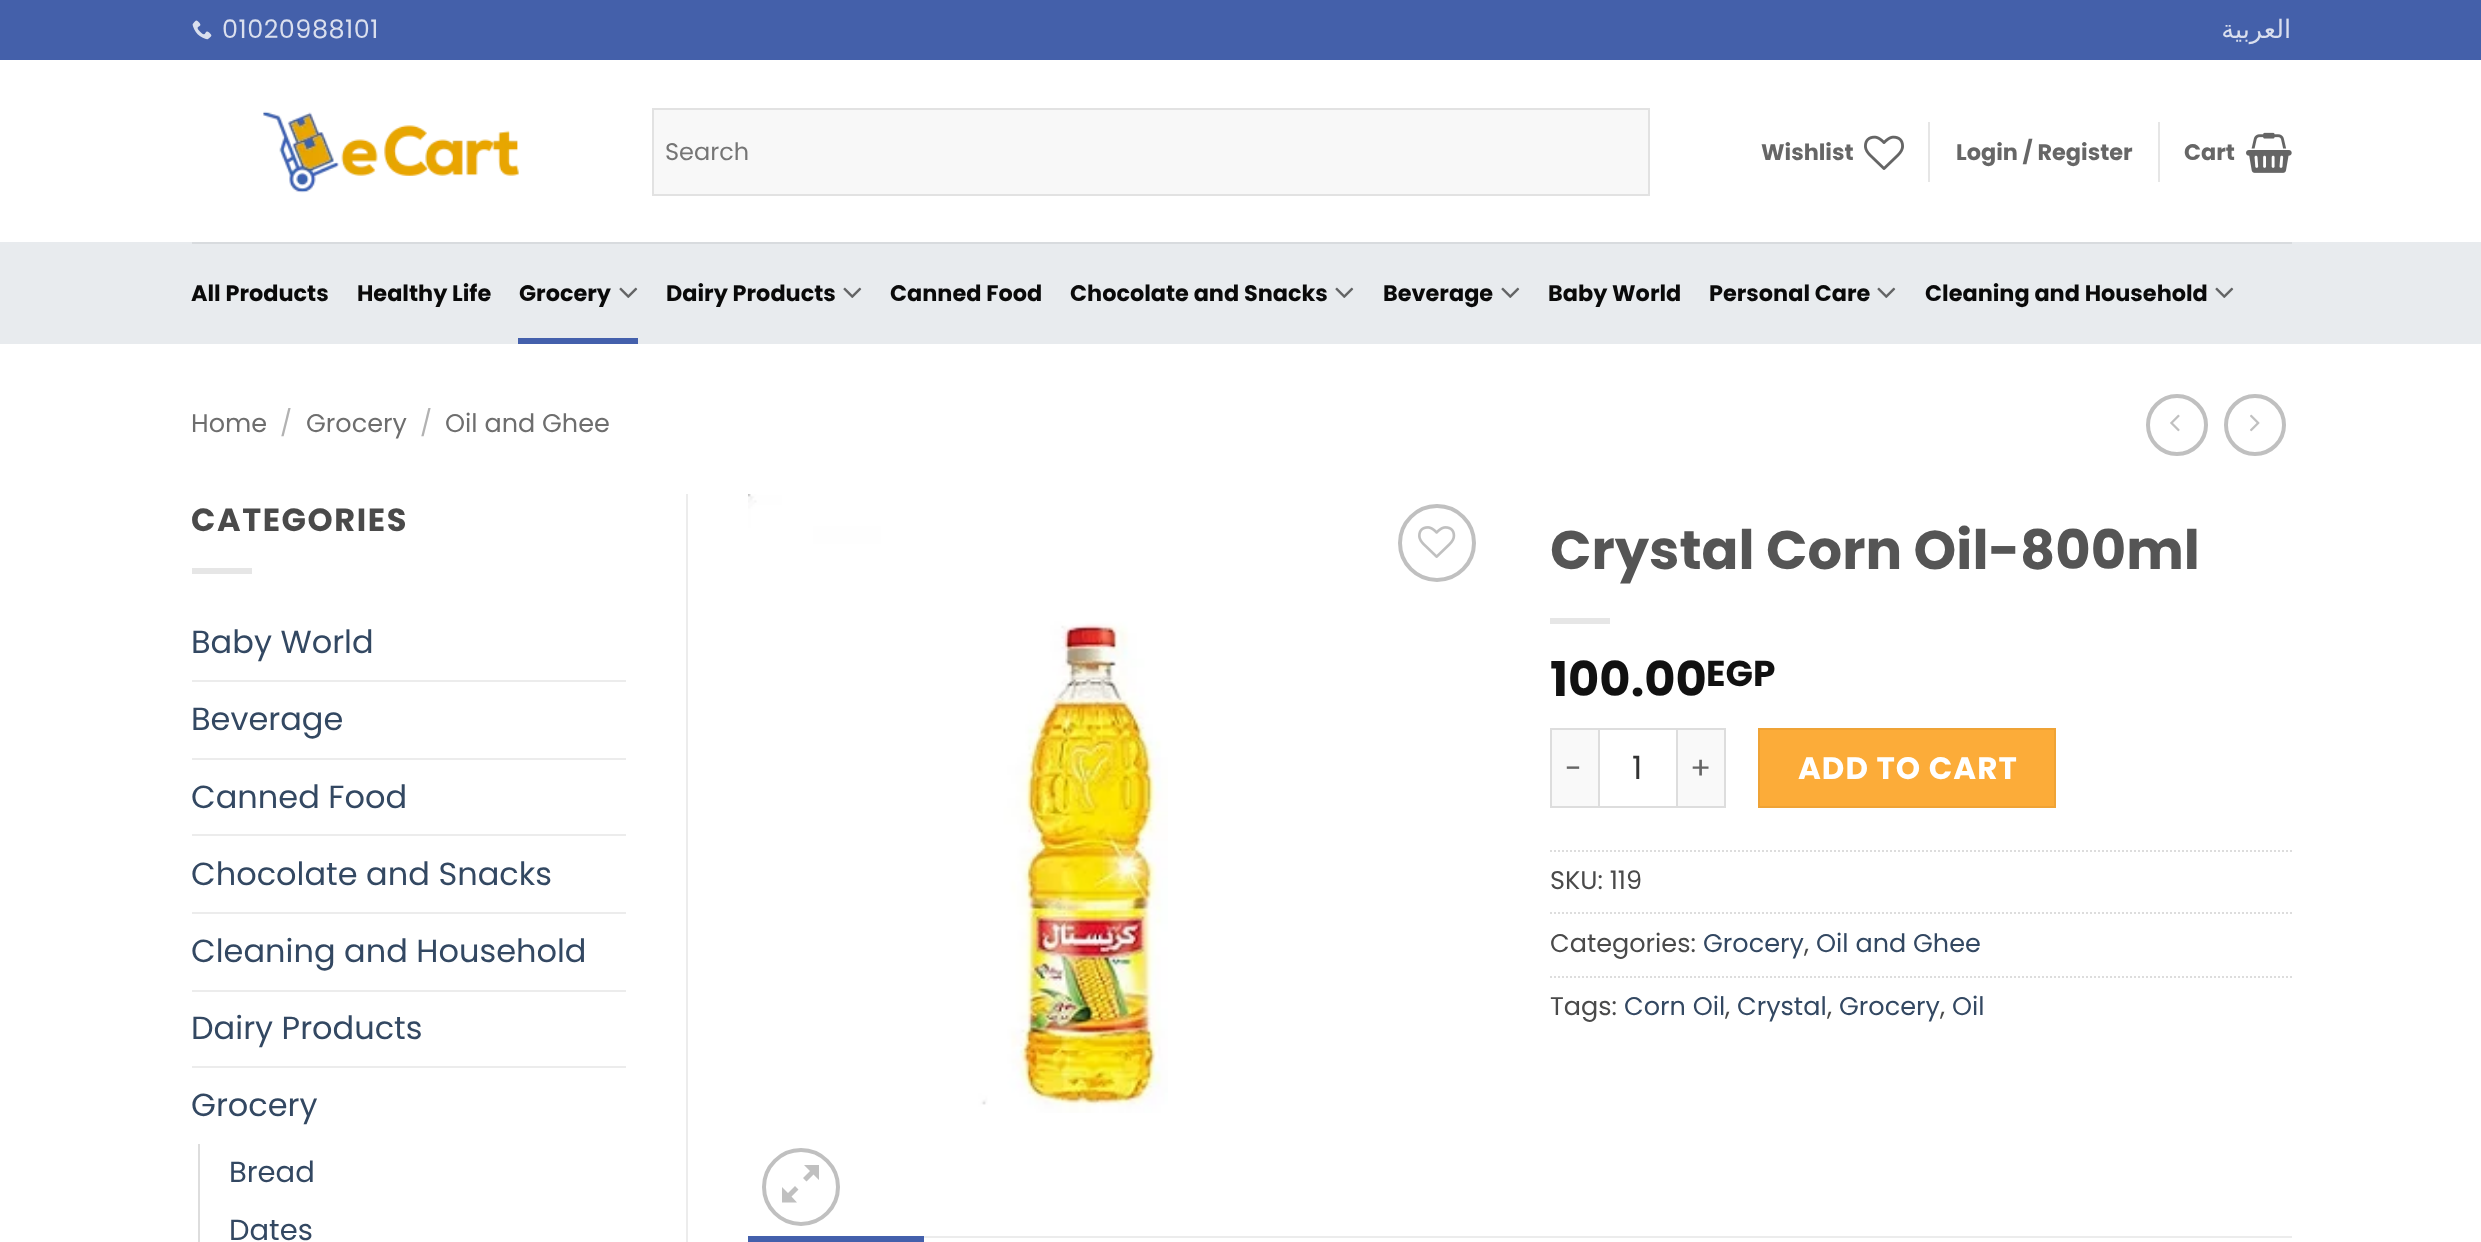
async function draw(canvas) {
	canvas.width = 2481;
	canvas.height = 1242;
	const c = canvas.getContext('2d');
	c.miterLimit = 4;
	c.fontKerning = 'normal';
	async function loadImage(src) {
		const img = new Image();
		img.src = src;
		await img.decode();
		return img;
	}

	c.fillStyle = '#fff';
	c.fillRect(0, 0, 2481, 1242);
	c.fillStyle = '#4460aa';
	c.fillRect(0, 0, 2481, 60);
	c.drawImage(await loadImage('img1.png'), 192, 20, 20, 20);
	c.letterSpacing = '0.5px';
	c.font = '25.5px Poppins';
	c.fillStyle = '#dadfee';
	c.fillText('01020988101', 222, 38);
	c.letterSpacing = '0px';
	c.direction = 'rtl';
	c.font = '25.5px DejaVu Sans';
	c.fillText('العربية', 2291, 38);
	c.drawImage(await loadImage('img2.png'), 263, 111, 256, 82);
	c.fillStyle = '#f8f8f8';
	c.beginPath();
	c.rect(653, 109, 996, 86);
	c.fill();
	c.strokeStyle = '#e2e2e2';
	c.lineWidth = 2;
	c.stroke();
	c.direction = 'ltr';
	c.font = '24px Poppins';
	c.fillStyle = '#757575';
	c.fillText('Search', 665, 160);
	c.font = 'bold 22.4px Poppins';
	c.fillStyle = '#666';
	c.fillText('Wishlist', 1761, 160);
	c.drawImage(await loadImage('img3.png'), 1864, 135, 40, 35);
	c.fillStyle = '#e6e6e6';
	c.fillRect(1928, 122, 2, 60);
	c.fillStyle = '#666';
	c.fillText('Login / Register', 1956, 160);
	c.fillStyle = '#e6e6e6';
	c.fillRect(2158, 122, 2, 60);
	c.fillStyle = '#666';
	c.fillText('Cart', 2184, 160);
	c.drawImage(await loadImage('img4.png'), 2246, 132, 46, 41);
	c.fillStyle = '#e8ebee';
	c.fillRect(0, 242, 2481, 102);
	c.fillStyle = '#d8dbde';
	c.fillRect(192, 242, 2100, 2);
	c.fillStyle = '#0a0a0a';
	for (const [text, x, y] of [
		['All Products', 191, 301],
		['Healthy Life', 357, 301],
		['Grocery', 519, 301],
	]) {
		c.fillText(text, x, y);
	}
	c.drawImage(await loadImage('img5.png'), 619, 287, 19, 11);
	c.fillStyle = '#4460ac';
	c.fillRect(518, 338, 120, 6);
	c.fillStyle = '#0a0a0a';
	c.fillText('Dairy Products', 666, 301);
	c.drawImage(await loadImage('img5.png'), 843, 287, 19, 11);
	c.fillText('Canned Food', 890, 301);
	c.fillText('Chocolate and Snacks', 1070, 301);
	c.drawImage(await loadImage('img5.png'), 1335, 287, 19, 11);
	c.fillText('Beverage', 1383, 301);
	c.drawImage(await loadImage('img5.png'), 1501, 287, 19, 11);
	c.fillText('Baby World', 1548, 301);
	c.fillText('Personal Care', 1709, 301);
	c.drawImage(await loadImage('img5.png'), 1877, 287, 19, 11);
	c.fillText('Cleaning and Household', 1925, 301);
	c.drawImage(await loadImage('img5.png'), 2215, 287, 19, 11);
	c.font = '25.5px Poppins';
	c.fillStyle = '#6e6e6e';
	c.fillText('Home', 191, 432);
	c.fillStyle = '#b2b2b2';
	c.fillText('/', 280, 432);
	c.fillStyle = '#6e6e6e';
	c.fillText('Grocery', 306, 432);
	c.fillStyle = '#b2b2b2';
	c.fillText('/', 420, 432);
	c.fillStyle = '#6e6e6e';
	c.fillText('Oil and Ghee', 445, 432);
	c.beginPath();
	c.arc(2177, 425, 29, 0, 2 * Math.PI);
	c.strokeStyle = '#c0c0c0';
	c.lineWidth = 4;
	c.stroke();
	c.drawImage(await loadImage('img6.png'), 2170, 414, 10, 18);
	c.beginPath();
	c.arc(2255, 425, 29, 0, 2 * Math.PI);
	c.stroke();
	c.drawImage(await loadImage('img7.png'), 2250, 414, 10, 18);
	c.letterSpacing = '1.6px';
	c.font = 'bold 32px Poppins';
	c.fillStyle = '#4a4a4a';
	c.fillText('CATEGORIES', 191, 531);
	c.fillStyle = '#e6e6e6';
	c.fillRect(192, 568, 60, 6);
	c.letterSpacing = '0px';
	c.font = '32px Poppins';
	c.fillStyle = '#334862';
	c.fillText('Baby World', 191, 653);
	c.fillStyle = '#ececec';
	c.fillRect(192, 680, 434, 2);
	c.fillStyle = '#334862';
	c.fillText('Beverage', 191, 730);
	c.fillStyle = '#ececec';
	c.fillRect(192, 758, 434, 2);
	c.fillStyle = '#334862';
	c.fillText('Canned Food', 191, 808);
	c.fillStyle = '#ececec';
	c.fillRect(192, 834, 434, 2);
	c.fillStyle = '#334862';
	c.fillText('Chocolate and Snacks', 191, 885);
	c.fillStyle = '#ececec';
	c.fillRect(192, 912, 434, 2);
	c.fillStyle = '#334862';
	c.fillText('Cleaning and Household', 191, 962);
	c.fillStyle = '#ececec';
	c.fillRect(192, 990, 434, 2);
	c.fillStyle = '#334862';
	c.fillText('Dairy Products', 191, 1039);
	c.fillStyle = '#ececec';
	c.fillRect(192, 1066, 434, 2);
	c.fillStyle = '#334862';
	c.fillText('Grocery', 191, 1116);
	c.fillStyle = '#ddd';
	c.fillRect(198, 1144, 2, 98);
	c.font = '29px Poppins';
	c.fillStyle = '#334862';
	c.fillText('Bread', 229, 1182);
	c.fillText('Dates', 229, 1240);
	c.fillStyle = '#ececec';
	c.fillRect(686, 494, 2, 748);
	c.drawImage(await loadImage('img8.png'), 748, 494, 420, 619);
	c.beginPath();
	c.arc(1437, 543, 37, 0, 2 * Math.PI);
	c.stroke();
	c.drawImage(await loadImage('img9.png'), 1418, 526, 38, 32);
	c.beginPath();
	c.arc(801, 1187, 37, 0, 2 * Math.PI);
	c.stroke();
	c.fillStyle = '#c0c0c0';
	c.beginPath();
	c.moveTo(819, 1165);
	c.lineTo(819, 1180);
	c.lineTo(813.5, 1174.5);
	c.lineTo(806.5, 1181.5);
	c.lineTo(803, 1178);
	c.lineTo(810, 1171);
	c.lineTo(804, 1165);
	c.closePath();
	c.moveTo(798.5, 1189.5);
	c.lineTo(791.5, 1196.5);
	c.lineTo(797, 1202.5);
	c.lineTo(782, 1202.5);
	c.lineTo(782, 1187);
	c.lineTo(788, 1193);
	c.lineTo(795, 1186);
	c.closePath();
	c.fill();
	c.font = 'bold 54.4px Poppins';
	c.fillStyle = '#555';
	c.fillText('Crystal Corn Oil-800ml', 1550, 569);
	c.fillStyle = '#e6e6e6';
	c.fillRect(1550, 618, 60, 6);
	c.font = 'bold 48px Poppins';
	c.fillStyle = '#111';
	c.fillText('100.00', 1550, 696);
	c.font = 'bold 36px Poppins';
	c.fillText('EGP', 1706, 686);
	for (const [x, y, w, h, color] of [
		[1552, 730, 46, 76, '#f9f9f9'],
		[1550, 728, 48, 2, '#ddd'],
		[1550, 806, 48, 2, '#ddd'],
		[1550, 728, 2, 80, '#ddd'],
	]) {
		c.fillStyle = color;
		c.fillRect(x, y, w, h);
	}
	c.letterSpacing = '1px';
	c.font = '31px Poppins';
	c.fillStyle = '#666';
	c.fillText('-', 1565, 779);
	c.strokeStyle = '#ddd';
	c.lineWidth = 2;
	c.strokeRect(1599, 729, 78, 78);
	c.letterSpacing = '0px';
	c.font = '32px Poppins';
	c.fillStyle = '#333';
	c.fillText('1', 1632, 779);
	for (const [x, y, w, h, color] of [
		[1678, 730, 46, 76, '#f9f9f9'],
		[1678, 728, 48, 2, '#ddd'],
		[1724, 728, 2, 80, '#ddd'],
		[1678, 806, 48, 2, '#ddd'],
	]) {
		c.fillStyle = color;
		c.fillRect(x, y, w, h);
	}
	c.letterSpacing = '1px';
	c.font = '31px Poppins';
	c.fillStyle = '#666';
	c.fillText('+', 1690, 779);
	c.fillStyle = '#fcac39';
	c.beginPath();
	c.rect(1759, 729, 296, 78);
	c.fill();
	c.strokeStyle = '#efa336';
	c.stroke();
	c.font = 'bold 31px Poppins';
	c.fillStyle = '#fff';
	c.fillText('ADD TO CART', 1798, 779);
	c.beginPath();
	c.moveTo(1550, 851);
	c.lineTo(2292, 851);
	c.strokeStyle = '#ddd';
	c.setLineDash([2, 2]);
	c.stroke();
	c.letterSpacing = '0px';
	c.font = '25.5px Poppins';
	c.fillStyle = '#4a4a4a';
	c.fillText('SKU: 119', 1550, 889);
	c.beginPath();
	c.moveTo(1550, 913);
	c.lineTo(2292, 913);
	c.stroke();
	c.fillText('Categories:', 1550, 952);
	c.fillStyle = '#334862';
	c.fillText('Grocery', 1703, 952);
	c.fillStyle = '#4a4a4a';
	c.fillText(',', 1804, 952);
	c.fillStyle = '#334862';
	c.fillText('Oil and Ghee', 1816, 952);
	c.beginPath();
	c.moveTo(1550, 977);
	c.lineTo(2292, 977);
	c.stroke();
	c.fillStyle = '#4a4a4a';
	c.fillText('Tags:', 1550, 1015);
	c.fillStyle = '#334862';
	c.fillText('Corn Oil', 1624, 1015);
	c.fillStyle = '#4a4a4a';
	c.fillText(',', 1725, 1015);
	c.fillStyle = '#334862';
	c.fillText('Crystal', 1737, 1015);
	c.fillStyle = '#4a4a4a';
	c.fillText(',', 1827, 1015);
	c.fillStyle = '#334862';
	c.fillText('Grocery', 1839, 1015);
	c.fillStyle = '#4a4a4a';
	c.fillText(',', 1940, 1015);
	c.fillStyle = '#334862';
	c.fillText('Oil', 1952, 1015);
	c.fillStyle = '#ececec';
	c.fillRect(924, 1236, 1368, 2);
	c.fillStyle = '#4460ac';
	c.fillRect(748, 1236, 176, 6);
}

draw(document.querySelector('canvas'));
